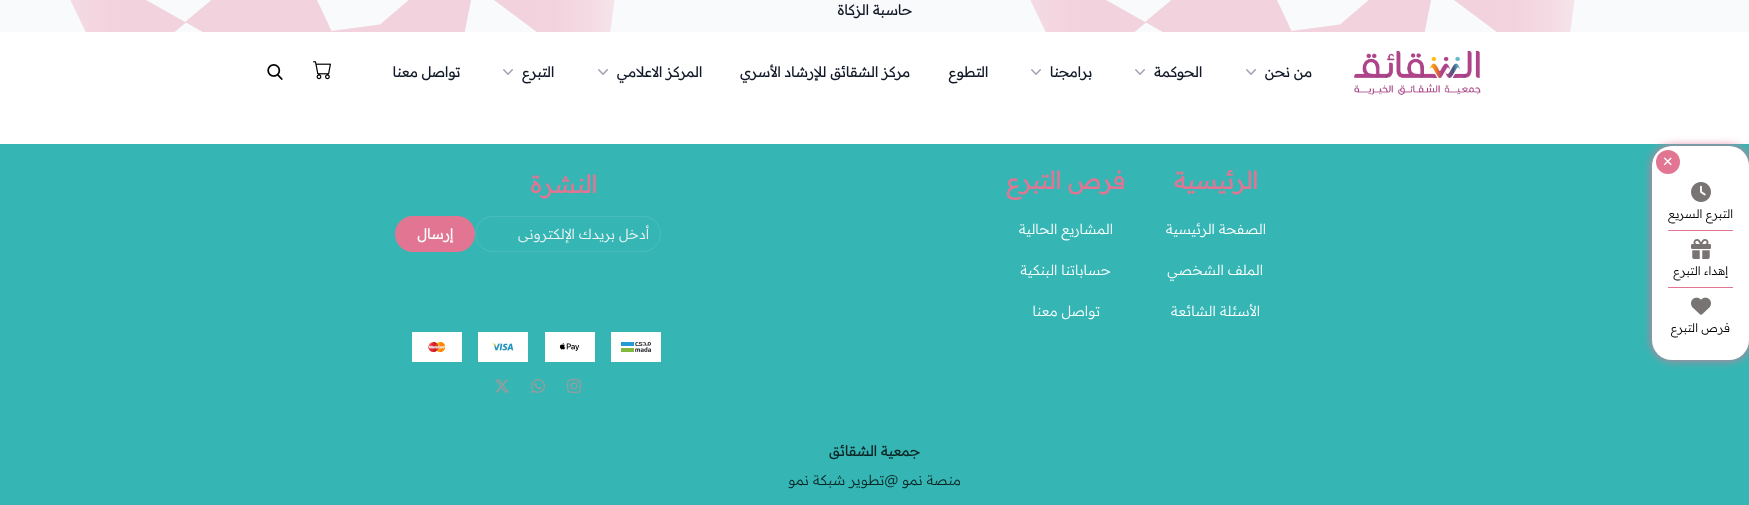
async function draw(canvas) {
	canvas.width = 1749;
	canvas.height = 505;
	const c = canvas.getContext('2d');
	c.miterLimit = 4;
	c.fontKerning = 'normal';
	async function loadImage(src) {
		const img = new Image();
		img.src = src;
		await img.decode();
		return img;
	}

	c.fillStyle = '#fff';
	c.fillRect(0, 0, 1749, 505);
	c.fillStyle = '#f9fafb';
	c.fillRect(0, 0, 1749, 32);
	c.fillStyle = '#35b6b4';
	c.fillRect(0, 144, 1749, 361);
	c.save();
	c.beginPath();
	c.rect(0, 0, 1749, 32);
	c.clip();
	c.beginPath();
	c.moveTo(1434, -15);
	c.lineTo(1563.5, 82);
	c.lineTo(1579.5, -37);
	c.lineTo(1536, -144);
	c.lineTo(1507.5, -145);
	c.lineTo(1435, -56.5);
	c.lineTo(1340, 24.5);
	c.lineTo(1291.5, 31);
	c.lineTo(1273, -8.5);
	c.lineTo(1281, -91);
	c.lineTo(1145, 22);
	c.lineTo(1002.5, -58.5);
	c.lineTo(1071, 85);
	c.lineTo(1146, 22.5);
	c.lineTo(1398.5, 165);
	c.closePath();
	c.clip();
	c.fillStyle = '#f2d2dc';
	c.filter = 'blur(40px)';
	c.beginPath();
	c.rect(1003, -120, 577, 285);
	c.fill();
	c.filter = 'none';
	c.restore();
	c.direction = 'rtl';
	c.font = 'bold 14px Readex Pro';
	c.fillStyle = '#111827';
	c.fillText('حاسبة الزكاة', 912, 15);
	c.drawImage(await loadImage('img3.png'), 313, 61, 18, 19);
	c.drawImage(await loadImage('img4.png'), 267, 64, 16, 16);
	c.beginPath();
	c.roundRect(475.5, 216.5, 185, 35, 17.5);
	c.strokeStyle = '#ffffff1a';
	c.stroke();
	c.fillStyle = '#e27592';
	c.beginPath();
	c.roundRect(395, 216, 80, 36, 18);
	c.fill();
	c.save();
	c.beginPath();
	c.rect(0, 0, 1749, 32);
	c.clip();
	c.beginPath();
	c.moveTo(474, -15);
	c.lineTo(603.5, 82);
	c.lineTo(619.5, -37);
	c.lineTo(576, -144);
	c.lineTo(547.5, -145);
	c.lineTo(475, -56.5);
	c.lineTo(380, 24.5);
	c.lineTo(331.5, 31);
	c.lineTo(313, -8.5);
	c.lineTo(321, -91);
	c.lineTo(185, 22);
	c.lineTo(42.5, -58.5);
	c.lineTo(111, 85);
	c.lineTo(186, 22.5);
	c.lineTo(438.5, 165);
	c.closePath();
	c.clip();
	c.fillStyle = '#f2d2dc';
	c.filter = 'blur(40px)';
	c.beginPath();
	c.rect(43, -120, 577, 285);
	c.fill();
	c.filter = 'none';
	c.restore();
	c.drawImage(await loadImage('img1.png'), 1354, 50, 127, 45);
	c.fillStyle = '#111827';
	c.fillText('من نحن', 1312, 77);
	c.drawImage(await loadImage('img2.png'), 1246, 69, 10, 6);
	c.fillText('الحوكمة', 1202, 77);
	c.drawImage(await loadImage('img2.png'), 1135, 69, 10, 6);
	c.fillText('برامجنا', 1092, 77);
	c.drawImage(await loadImage('img2.png'), 1031, 69, 10, 6);
	for (const [text, x, y] of [
		['التطوع', 988, 77],
		['مركز الشقائق للإرشاد الأسري', 910, 77],
		['المركز الاعلامي', 702, 77],
	]) {
		c.fillText(text, x, y);
	}
	c.drawImage(await loadImage('img2.png'), 598, 69, 10, 6);
	c.fillText('التبرع', 554, 77);
	c.drawImage(await loadImage('img2.png'), 503, 69, 10, 6);
	c.fillText('تواصل معنا', 460, 77);
	c.fillStyle = '#e27592';
	c.filter = 'blur(5px)';
	c.beginPath();
	c.roundRect(1652, 146, 97, 214, 20);
	c.fill();
	c.filter = 'none';
	c.fillStyle = '#fff';
	c.beginPath();
	c.roundRect(1652, 146, 97, 214, 20);
	c.fill();
	c.fillStyle = '#e27592';
	c.beginPath();
	c.arc(1668, 162, 12, 0, 2 * Math.PI);
	c.fill();
	c.direction = 'ltr';
	c.font = '300 20px Readex Pro';
	c.fillStyle = '#fff';
	c.fillText('×', 1663, 167);
	c.fillStyle = '#e27592';
	c.fillRect(1668, 230, 65, 1);
	c.drawImage(await loadImage('img5.png'), 1691, 182, 20, 20);
	c.direction = 'rtl';
	c.font = '300 12px Readex Pro';
	c.fillStyle = '#000';
	c.fillText('التبرع السريع', 1733, 218);
	c.fillStyle = '#e27592';
	c.fillRect(1668, 287, 65, 1);
	c.drawImage(await loadImage('img6.png'), 1691, 239, 20, 20);
	c.fillStyle = '#000';
	c.fillText('إهداء التبرع', 1728, 275);
	c.drawImage(await loadImage('img7.png'), 1691, 297, 20, 18);
	c.fillText('فرص التبرع', 1730, 332);
	c.font = 'bold 24px Readex Pro';
	c.fillStyle = '#e27592';
	c.fillText('الرئيسية', 1258, 189);
	c.font = '300 14px Readex Pro';
	c.fillStyle = '#fff';
	for (const [text, x, y] of [
		['الصفحة الرئيسية', 1266, 234],
		['الملف الشخصي', 1263, 275],
		['الأسئلة الشائعة', 1260, 316],
	]) {
		c.fillText(text, x, y);
	}
	c.font = 'bold 24px Readex Pro';
	c.fillStyle = '#e27592';
	c.fillText('فرص التبرع', 1125, 189);
	c.font = '300 14px Readex Pro';
	c.fillStyle = '#fff';
	for (const [text, x, y] of [
		['المشاريع الحالية', 1113, 234],
		['حساباتنا البنكية', 1111, 275],
		['تواصل معنا', 1100, 316],
	]) {
		c.fillText(text, x, y);
	}
	c.font = 'bold 24px Readex Pro';
	c.fillStyle = '#e27592';
	c.fillText('النشرة', 597, 193);
	c.save();
	c.beginPath();
	c.rect(487, 225, 162, 18);
	c.clip();
	c.font = '300 14px Readex Pro';
	c.fillStyle = '#f3f4f6';
	c.fillText('أدخل بريدك الإلكتروني', 649, 239);
	c.restore();
	c.font = 'bold 14px Readex Pro';
	c.fillStyle = '#fff';
	c.fillText('إرسال', 453, 239);
	c.fillRect(611, 332, 50, 30);
	c.drawImage(await loadImage('img8.png'), 621, 342, 30, 10);
	c.fillRect(545, 332, 50, 30);
	c.drawImage(await loadImage('img9.png'), 559, 343, 21, 8);
	c.fillRect(478, 332, 50, 30);
	c.drawImage(await loadImage('img10.png'), 492, 343, 22, 8);
	c.fillRect(412, 332, 50, 30);
	c.drawImage(await loadImage('img11.png'), 428, 342, 17, 10);
	c.drawImage(await loadImage('img12.png'), 567, 379, 14, 14);
	c.drawImage(await loadImage('img13.png'), 531, 379, 14, 14);
	c.drawImage(await loadImage('img14.png'), 495, 379, 14, 14);
	c.fillStyle = '#0a2424';
	c.fillText('جمعية الشقائق', 920, 456);
	c.font = '300 14px Readex Pro';
	c.fillText('منصة نمو @تطوير شبكة نمو', 961, 485);
}

draw(document.querySelector('canvas'));
